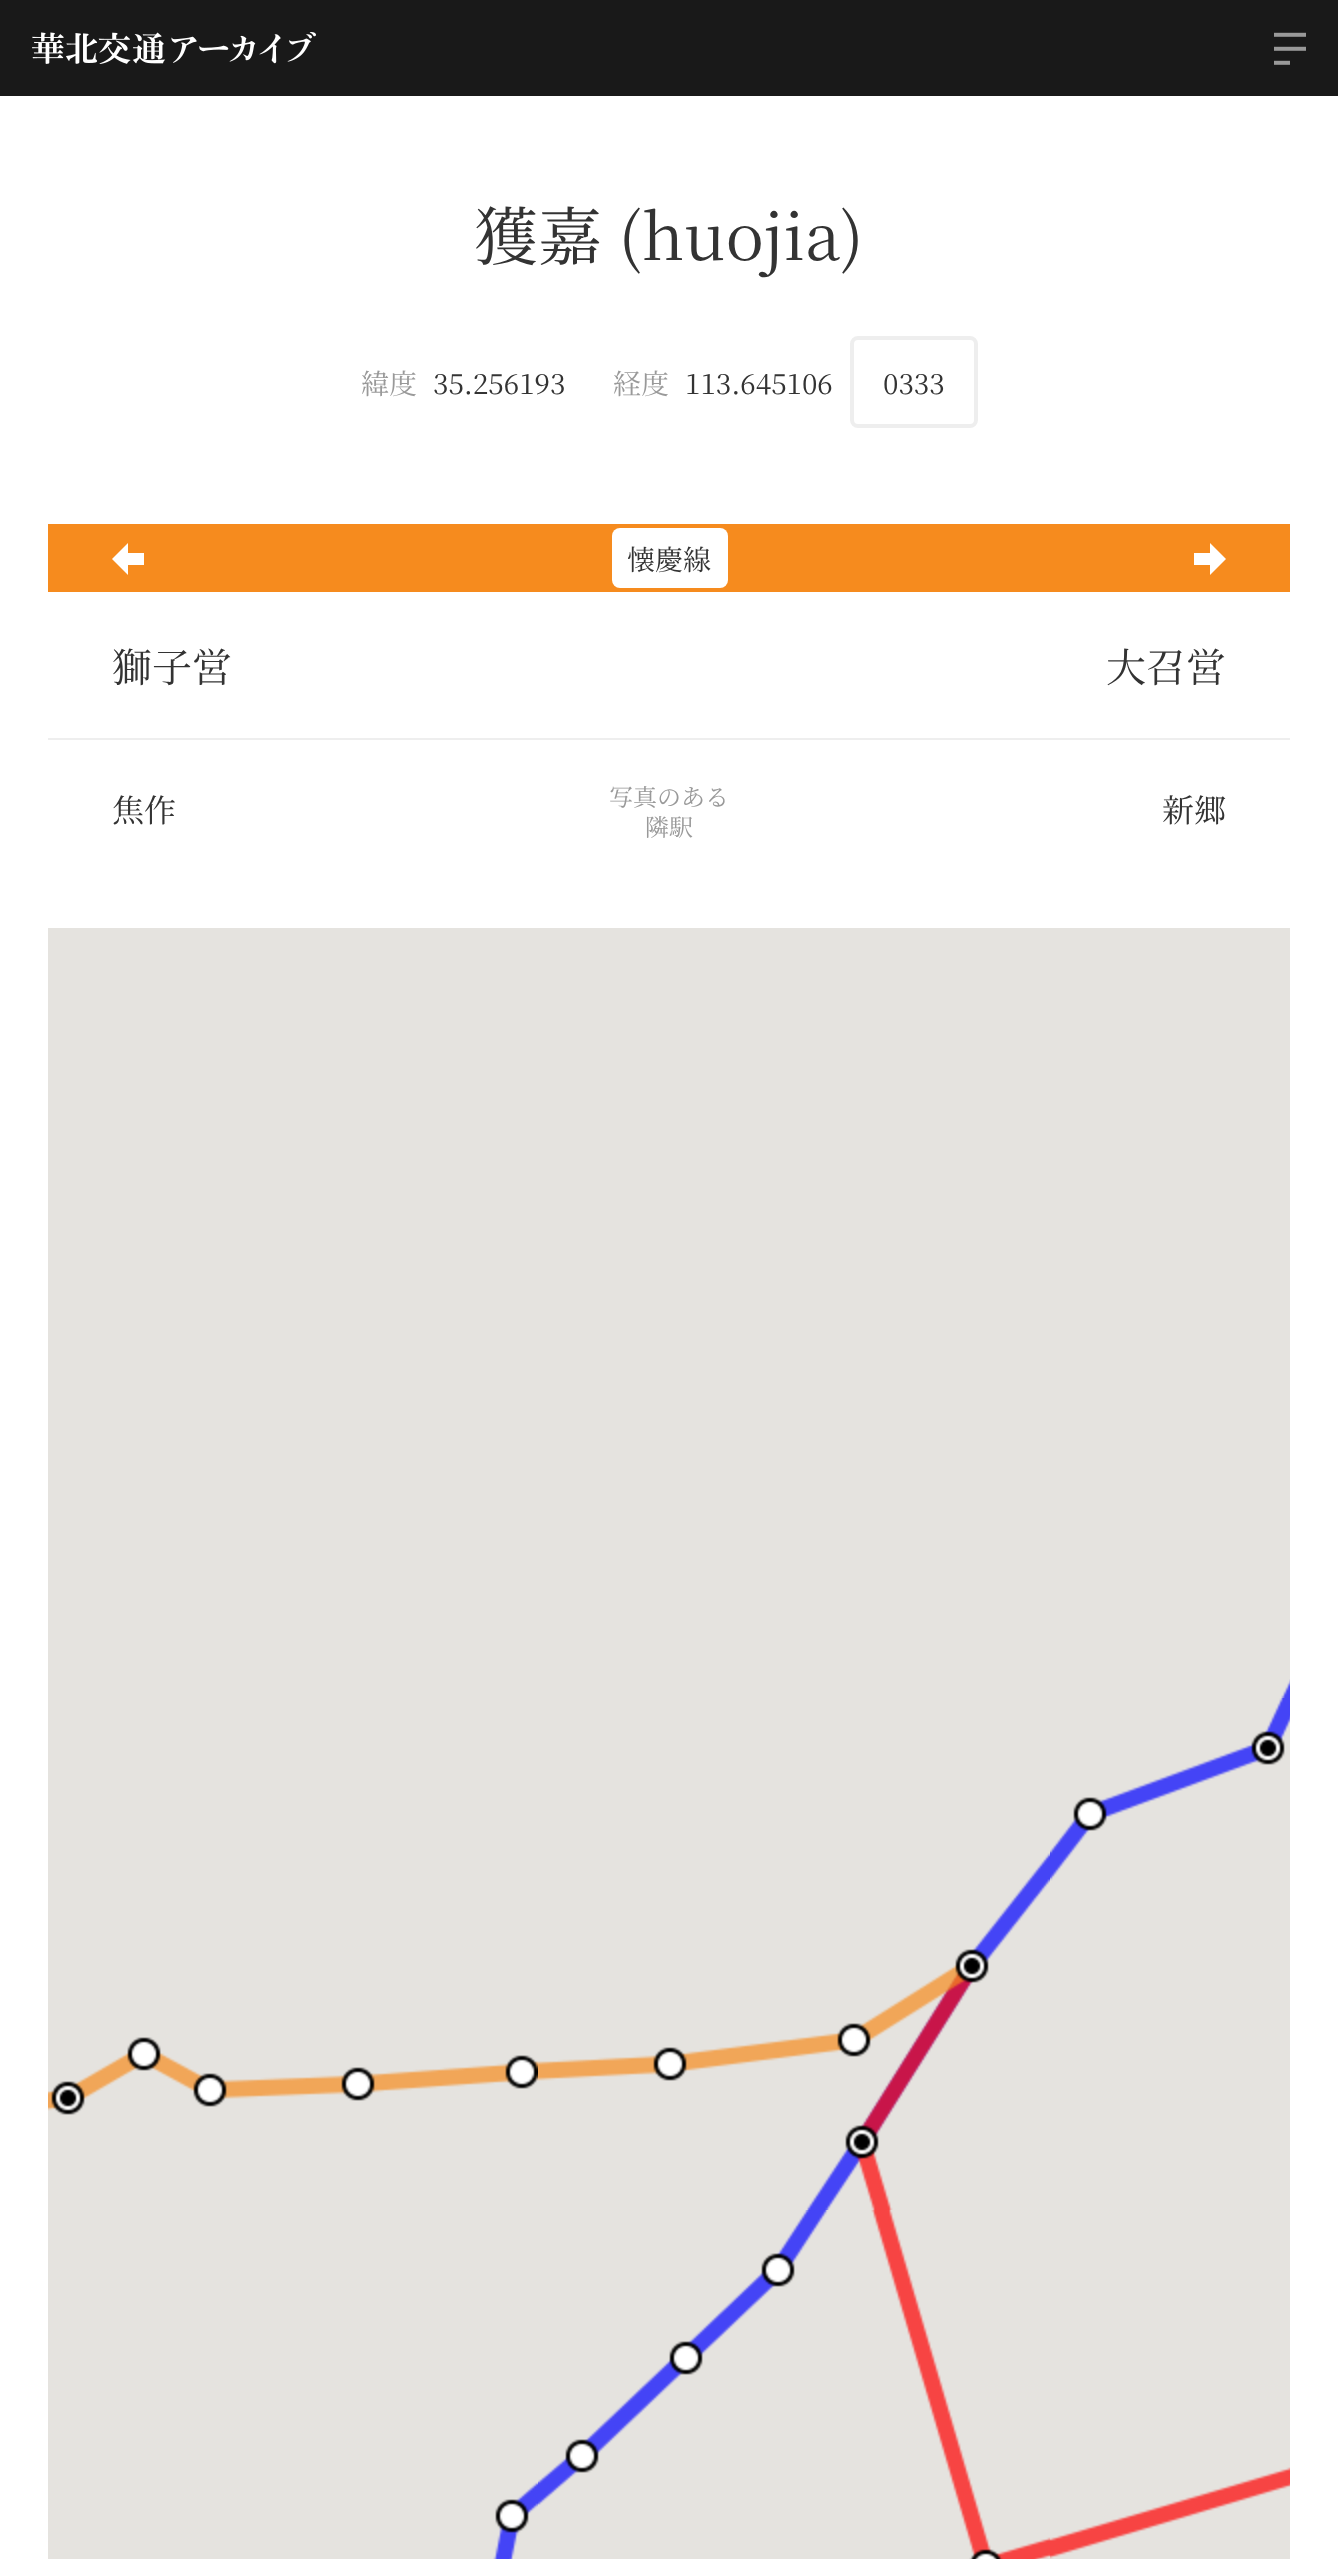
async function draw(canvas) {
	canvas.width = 1338;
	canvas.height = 2559;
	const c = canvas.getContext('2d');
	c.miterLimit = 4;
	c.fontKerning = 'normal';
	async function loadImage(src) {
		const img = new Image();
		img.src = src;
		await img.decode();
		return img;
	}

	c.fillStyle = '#fff';
	c.fillRect(0, 0, 1338, 2559);
	c.fillStyle = '#191919';
	c.fillRect(0, 0, 1338, 96);
	c.drawImage(await loadImage('img1.png'), 32, 32, 284, 32);
	c.drawImage(await loadImage('img2.png'), 1274, 32, 32, 33);
	c.font = '200 64px Noto Serif JP';
	c.fillStyle = '#333';
	c.fillText('獲嘉 (huojia)', 474, 260);
	c.font = '200 28px Noto Serif JP';
	c.fillStyle = '#999';
	c.fillText('緯度', 361, 394);
	c.fillStyle = '#333';
	c.fillText('35.256193', 433, 394);
	c.fillStyle = '#999';
	c.fillText('経度', 613, 394);
	c.fillStyle = '#333';
	c.fillText('113.645106', 685, 394);
	c.beginPath();
	c.roundRect(852, 338, 124, 88, 6);
	c.strokeStyle = '#eee';
	c.lineWidth = 4;
	c.stroke();
	c.fillText('0333', 883, 394);
	c.fillStyle = '#f68b1e';
	c.fillRect(48, 524, 1242, 68);
	c.fillStyle = '#fff';
	c.beginPath();
	c.moveTo(128, 575);
	c.lineTo(112, 559);
	c.lineTo(128, 543);
	c.lineTo(128, 553);
	c.lineTo(144, 553);
	c.lineTo(144, 565);
	c.lineTo(128, 565);
	c.closePath();
	c.fill();
	c.beginPath();
	c.roundRect(612, 528, 116, 60, 8);
	c.fill();
	c.fillStyle = '#333';
	c.fillText('懐慶線', 627, 570);
	c.fillStyle = '#fff';
	c.beginPath();
	c.moveTo(1210, 565);
	c.lineTo(1194, 565);
	c.lineTo(1194, 553);
	c.lineTo(1210, 553);
	c.lineTo(1210, 543);
	c.lineTo(1226, 559);
	c.lineTo(1210, 575);
	c.closePath();
	c.fill();
	c.fillStyle = '#eee';
	c.fillRect(48, 738, 1242, 2);
	c.font = '200 40px Noto Serif JP';
	c.fillStyle = '#333';
	c.fillText('獅子営', 112, 682);
	c.fillText('大召営', 1106, 682);
	c.font = '200 32px Noto Serif JP';
	c.fillText('焦作', 112, 822);
	c.font = '200 24px Noto Serif JP';
	c.fillStyle = '#999';
	c.fillText('写真のある', 609, 806);
	c.fillText('隣駅', 645, 836);
	c.font = '200 32px Noto Serif JP';
	c.fillStyle = '#333';
	c.fillText('新郷', 1162, 822);
	c.fillStyle = '#e5e3df';
	c.fillRect(48, 928, 1242, 1631);
	c.drawImage(await loadImage('img3.png'), 1281, 1679, 9, 19);
	c.drawImage(await loadImage('img4.png'), 1050, 1698, 240, 183);
	c.drawImage(await loadImage('img5.png'), 48, 2051, 490, 60);
	c.drawImage(await loadImage('img6.png'), 538, 1853, 512, 357);
	c.drawImage(await loadImage('img7.png'), 493, 2482, 45, 77);
	c.drawImage(await loadImage('img8.png'), 538, 2210, 512, 349);
	c.drawImage(await loadImage('img9.png'), 1050, 2467, 240, 92);
	c.drawImage(await loadImage('img10.png'), 1073, 1731, 212, 100);
	c.drawImage(await loadImage('img11.png'), 51, 2037, 487, 78);
	c.drawImage(await loadImage('img12.png'), 653, 1949, 336, 210);
	c.drawImage(await loadImage('img13.png'), 495, 2499, 34, 34);
	c.drawImage(await loadImage('img14.png'), 565, 2253, 438, 306);
}

draw(document.querySelector('canvas'));
